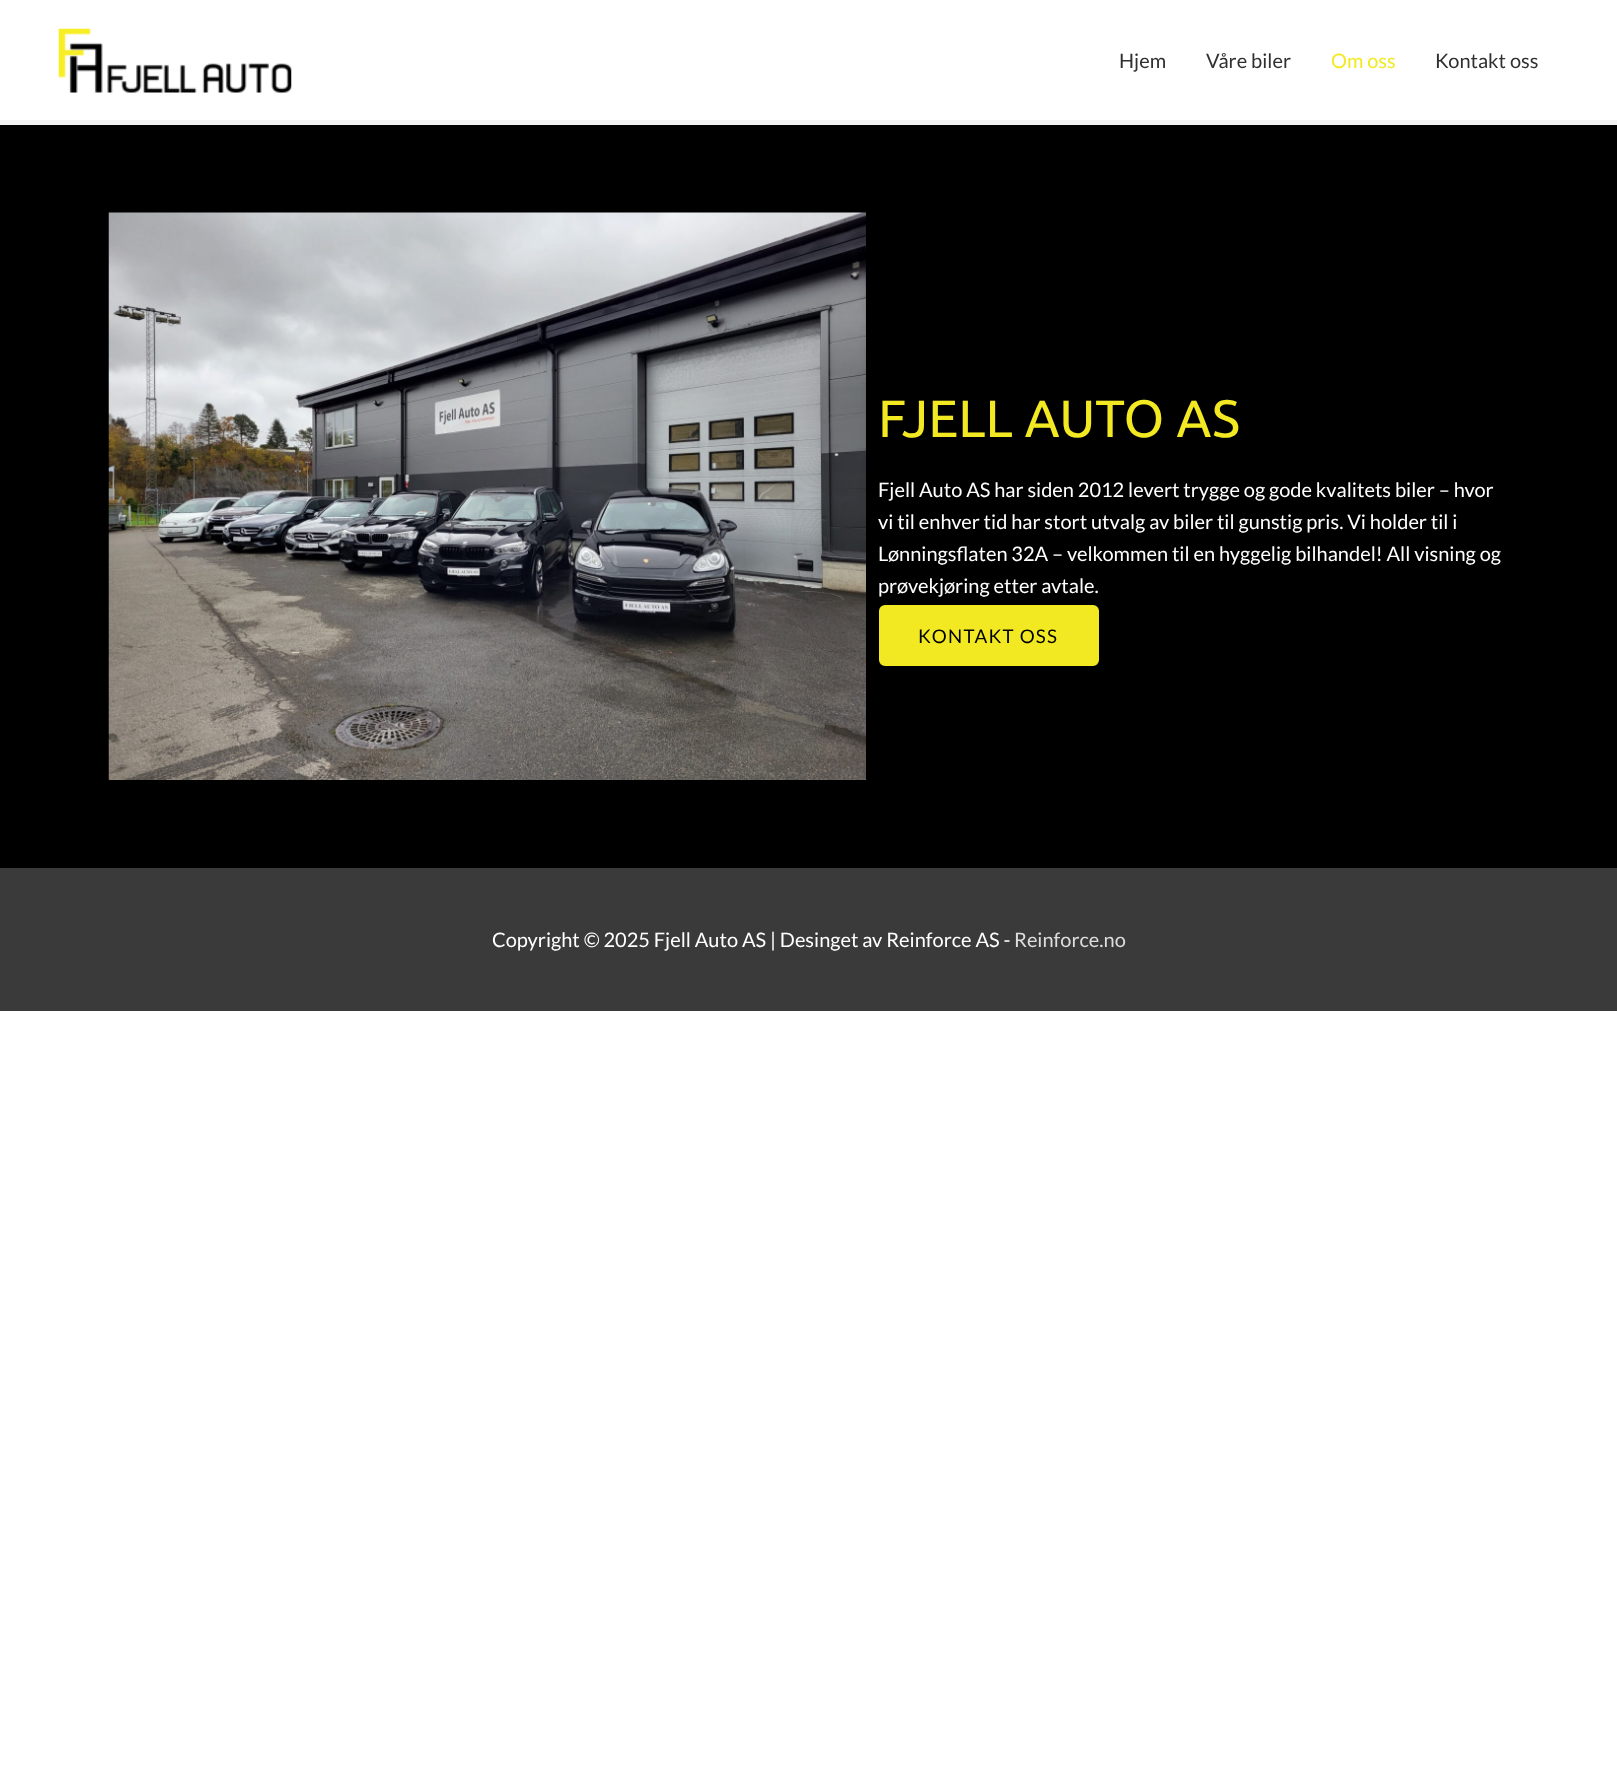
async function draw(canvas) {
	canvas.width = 1617;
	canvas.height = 1774;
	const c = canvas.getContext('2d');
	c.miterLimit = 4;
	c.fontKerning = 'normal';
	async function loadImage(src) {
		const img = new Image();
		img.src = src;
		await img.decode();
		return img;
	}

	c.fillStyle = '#fff';
	c.fillRect(0, 0, 1617, 1774);
	c.fillStyle = '#f2f2f2';
	c.fillRect(0, 120, 1617, 5);
	c.drawImage(await loadImage('img1.png'), 58, 28, 234, 65);
	c.font = '20px Lato';
	c.fillStyle = '#303030';
	c.fillText('Hjem', 1119, 68);
	c.fillText('Våre biler', 1206, 68);
	c.fillStyle = '#f2e922';
	c.fillText('Om oss', 1331, 68);
	c.fillStyle = '#303030';
	c.fillText('Kontakt oss', 1435, 68);
	c.fillStyle = '#000';
	c.fillRect(0, 125, 1617, 743);
	c.drawImage(await loadImage('img2.png'), 108, 212, 758, 568);
	c.font = '52.5px Ubuntu';
	c.fillStyle = '#f2e922';
	c.fillText('FJELL AUTO AS', 878, 437);
	c.font = '20px Lato';
	c.fillStyle = '#fff';
	for (const [text, x, y] of [
		['Fjell Auto AS har siden 2012 levert trygge og gode kvalitets biler – hvor', 878, 497],
		['vi til enhver tid har stort utvalg av biler til gunstig pris. Vi holder til i', 878, 529],
		['Lønningsflaten 32A – velkommen til en hyggelig bilhandel! All visning og', 878, 561],
		['prøvekjøring etter avtale.', 878, 593],
	]) {
		c.fillText(text, x, y);
	}
	c.fillStyle = '#f2e922';
	c.beginPath();
	c.roundRect(880.5, 606.5, 217, 58, 4.5);
	c.fill();
	c.strokeStyle = '#f2e922';
	c.lineWidth = 3;
	c.stroke();
	c.letterSpacing = '1.25px';
	c.font = '18.75px Lato';
	c.fillStyle = '#000';
	c.fillText('KONTAKT OSS', 918, 643);
	c.fillStyle = '#3a3a3a';
	c.fillRect(0, 868, 1617, 143);
	c.letterSpacing = '0px';
	c.font = '20px Lato';
	c.fillStyle = '#fff';
	c.fillText('Copyright © 2025 Fjell Auto AS | Desinget av Reinforce AS -', 492, 947);
	c.fillStyle = '#ddd';
	c.fillText('Reinforce.no', 1014, 947);
}

draw(document.querySelector('canvas'));
